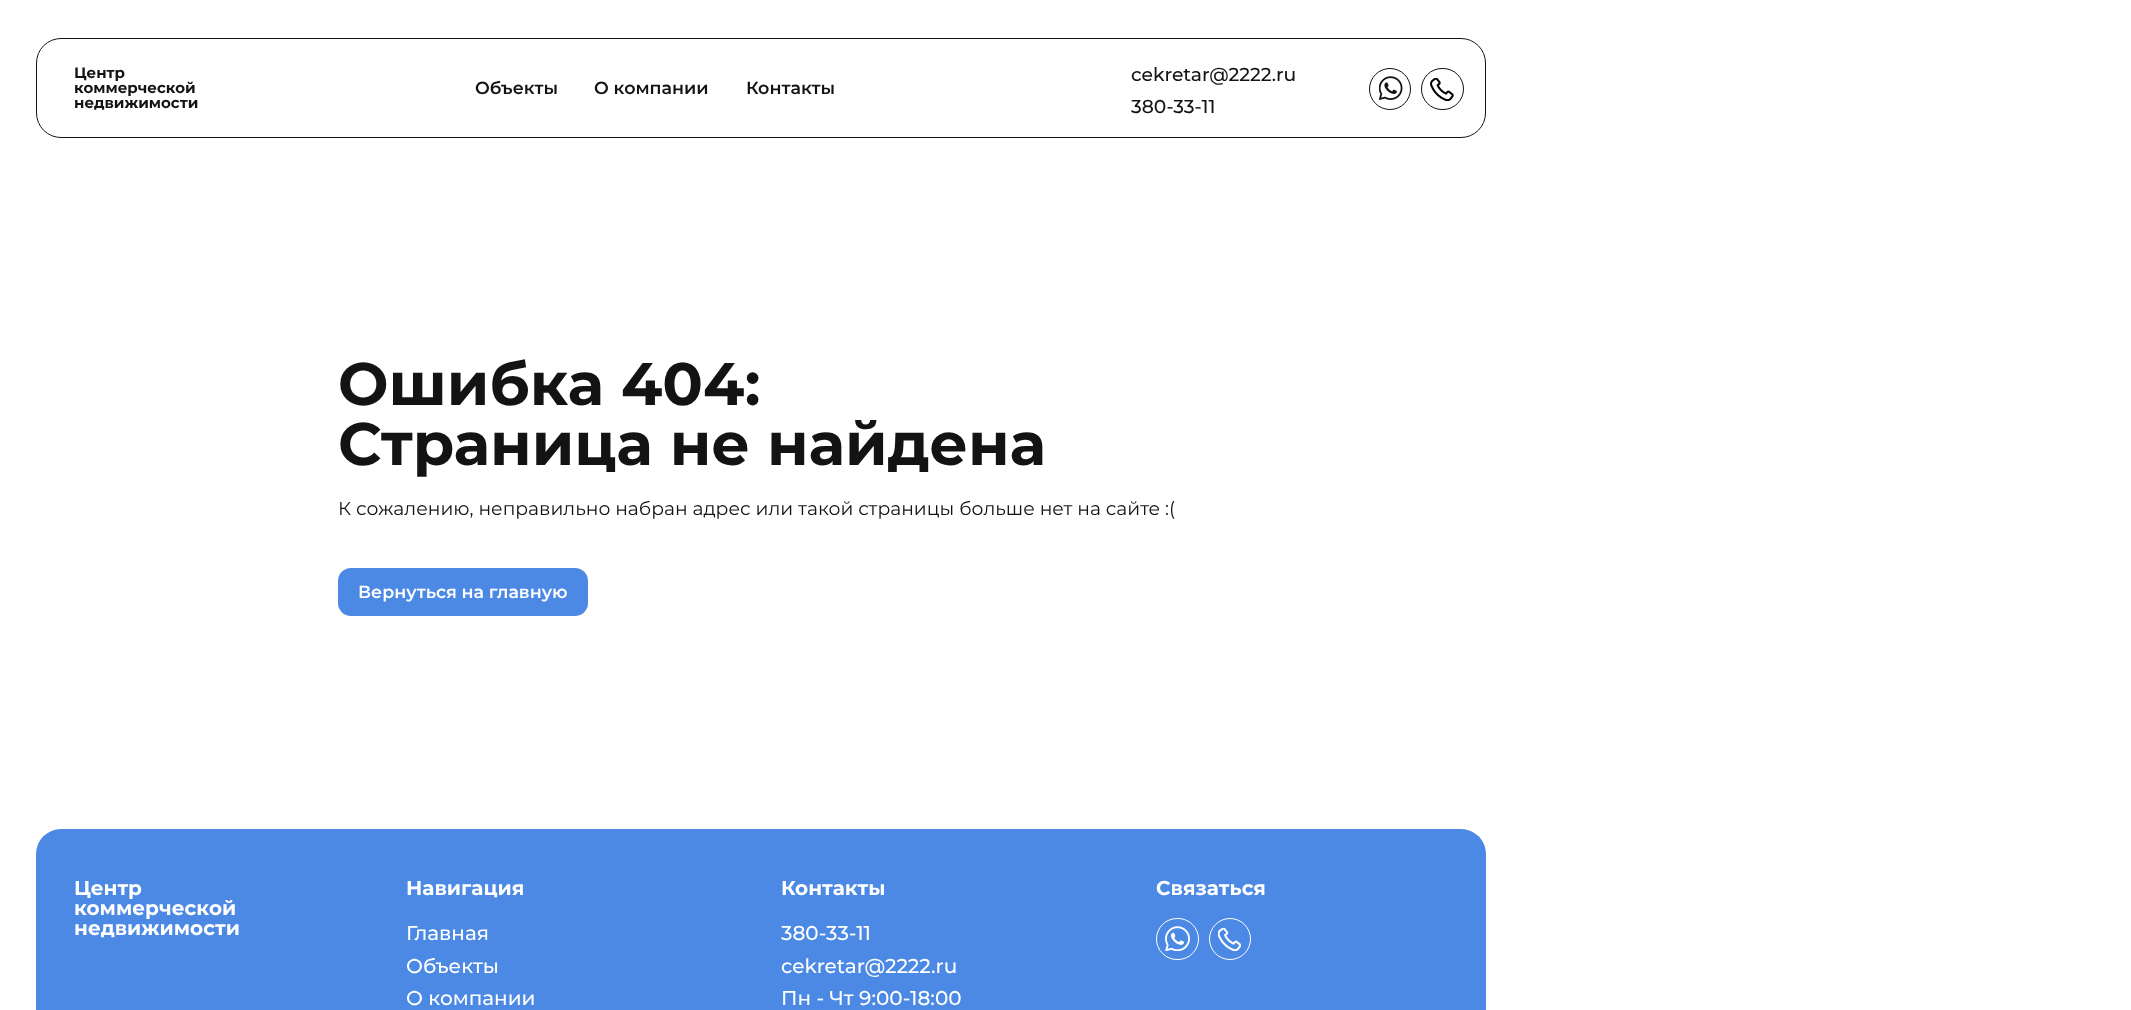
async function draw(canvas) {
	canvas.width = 2131;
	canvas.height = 1010;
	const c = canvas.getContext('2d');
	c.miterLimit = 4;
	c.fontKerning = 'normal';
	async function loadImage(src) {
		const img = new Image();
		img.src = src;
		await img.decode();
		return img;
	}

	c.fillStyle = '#fff';
	c.fillRect(0, 0, 2131, 1010);
	c.beginPath();
	c.roundRect(36.5, 38.5, 1449, 99, 24.5);
	c.strokeStyle = '#131313';
	c.stroke();
	c.font = 'bold 15px Montserrat';
	c.fillStyle = '#131313';
	for (const [text, x, y] of [
		['Центр', 74, 78],
		['коммерческой', 74, 93],
		['недвижимости', 74, 108],
	]) {
		c.fillText(text, x, y);
	}
	c.font = '600 17.5px Montserrat';
	for (const [text, x, y] of [
		['Объекты', 475, 94],
		['О компании', 594, 94],
		['Контакты', 746, 94],
	]) {
		c.fillText(text, x, y);
	}
	c.font = '500 18.75px Montserrat';
	c.fillText('cekretar@2222.ru', 1131, 81);
	c.beginPath();
	c.arc(1390, 89, 20.5, 0, 2 * Math.PI);
	c.stroke();
	c.drawImage(await loadImage('img1.png'), 1379, 76, 24, 24);
	c.beginPath();
	c.roundRect(1421.5, 68.5, 42, 41, 20.5);
	c.stroke();
	c.drawImage(await loadImage('img2.png'), 1430, 78, 24, 23);
	c.fillText('380-33-11', 1131, 113);
	c.font = 'bold 60px Montserrat';
	c.fillText('Ошибка 404:', 338, 405);
	c.fillText('Страница не найдена', 338, 465);
	c.font = '18.75px Montserrat';
	c.fillText('К сожалению, неправильно набран адрес или такой страницы больше нет на сайте :(', 338, 515);
	c.fillStyle = '#4b89e5';
	c.beginPath();
	c.roundRect(338, 568, 250, 48, 13);
	c.fill();
	c.font = '600 17.5px Montserrat';
	c.fillStyle = '#fff';
	c.fillText('Вернуться на главную', 358, 598);
	c.fillStyle = '#4b89e5';
	c.beginPath();
	c.roundRect(36, 829, 1450, 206, 25);
	c.fill();
	c.font = 'bold 20px Montserrat';
	c.fillStyle = '#fff';
	for (const [text, x, y] of [
		['Центр', 74, 895],
		['коммерческой', 74, 915],
		['недвижимости', 74, 935],
		['Навигация', 406, 895],
		['Контакты', 781, 895],
		['Связаться', 1156, 895],
	]) {
		c.fillText(text, x, y);
	}
	c.font = '500 20px Montserrat';
	c.fillText('Главная', 406, 940);
	c.fillText('380-33-11', 781, 940);
	c.beginPath();
	c.roundRect(1156.5, 918.5, 42, 41, 20.5);
	c.strokeStyle = '#fff';
	c.stroke();
	c.drawImage(await loadImage('img3.png'), 1165, 926, 25, 25);
	c.beginPath();
	c.arc(1230, 939, 20.5, 0, 2 * Math.PI);
	c.stroke();
	c.drawImage(await loadImage('img4.png'), 1218, 928, 23, 23);
	for (const [text, x, y] of [
		['Объекты', 406, 973],
		['cekretar@2222.ru', 781, 973],
		['О компании', 406, 1005],
		['Пн - Чт 9:00-18:00', 781, 1005],
	]) {
		c.fillText(text, x, y);
	}
}

draw(document.querySelector('canvas'));
